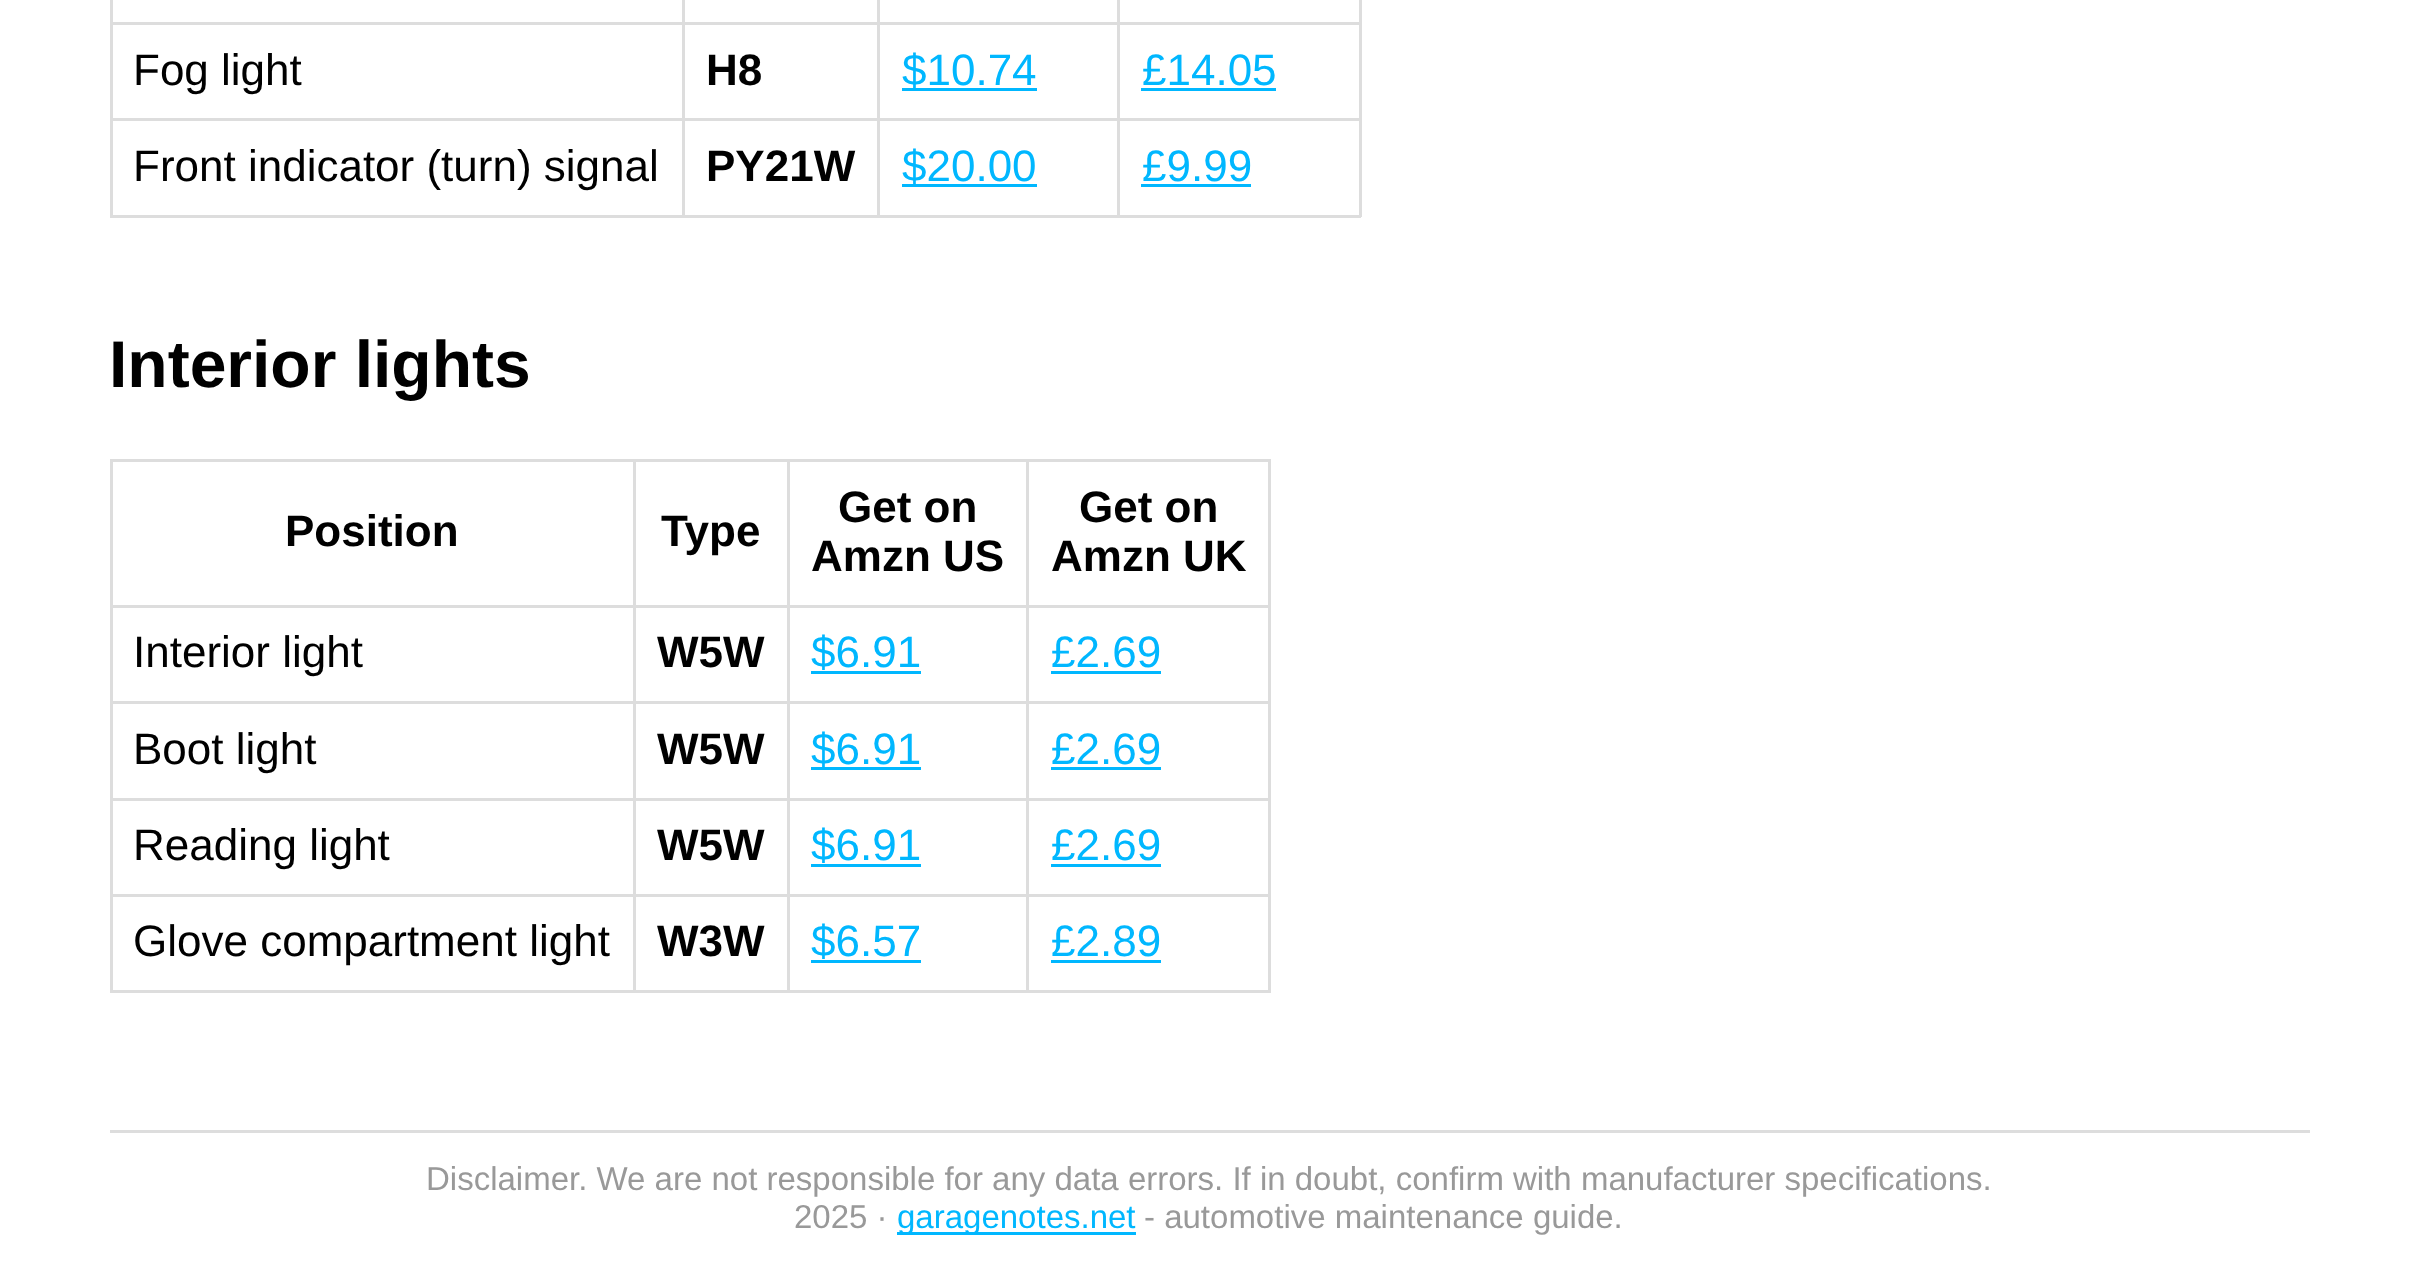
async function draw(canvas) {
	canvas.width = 2417;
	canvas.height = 1264;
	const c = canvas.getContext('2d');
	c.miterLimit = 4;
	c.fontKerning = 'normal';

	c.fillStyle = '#fff';
	c.fillRect(0, 0, 2417, 1264);
	for (const [x, y, w, h, color] of [
		[1117, 22, 244, 3, '#ddd'],
		[1117, 118, 244, 3, '#ddd'],
		[1359, 118, 3, 99, '#ddd'],
		[1117, 215, 244, 3, '#ddd'],
		[1117, 118, 3, 99, '#ddd'],
		[877, 118, 242, 3, '#ddd'],
		[1117, 22, 3, 99, '#ddd'],
		[877, 22, 242, 3, '#ddd'],
		[877, 215, 242, 3, '#ddd'],
		[877, 118, 3, 99, '#ddd'],
		[682, 118, 198, 3, '#ddd'],
		[877, 22, 3, 99, '#ddd'],
		[682, 22, 198, 3, '#ddd'],
		[682, 215, 198, 3, '#ddd'],
		[682, 118, 3, 99, '#ddd'],
		[110, 118, 575, 3, '#ddd'],
		[682, 22, 3, 99, '#ddd'],
		[110, 22, 575, 3, '#ddd'],
		[682, 0, 3, 25, '#ddd'],
		[877, 0, 3, 25, '#ddd'],
		[1117, 0, 3, 25, '#ddd'],
		[110, 215, 575, 3, '#ddd'],
		[110, 118, 3, 99, '#ddd'],
		[110, 0, 3, 121, '#ddd'],
	]) {
		c.fillStyle = color;
		c.fillRect(x, y, w, h);
	}
	c.font = '44px Liberation Sans';
	c.fillStyle = '#000';
	c.fillText('Fog light', 133, 85);
	c.font = 'bold 44px Liberation Sans';
	c.fillText('H8', 706, 85);
	c.fillStyle = '#00b7ff';
	c.fillRect(902, 88, 135, 3);
	c.font = '44px Liberation Sans';
	c.fillText('$10.74', 902, 85);
	c.fillStyle = '#ddd';
	c.fillRect(1359, 0, 3, 121);
	c.fillStyle = '#00b7ff';
	c.fillText('£14.05', 1142, 85);
	c.fillRect(1141, 88, 135, 3);
	c.fillStyle = '#000';
	c.fillText('Front indicator (turn) signal', 133, 181);
	c.font = 'bold 44px Liberation Sans';
	c.fillText('PY21W', 706, 181);
	c.fillStyle = '#00b7ff';
	c.fillRect(902, 184, 135, 3);
	c.font = '44px Liberation Sans';
	c.fillText('$20.00', 902, 181);
	c.fillText('£9.99', 1142, 181);
	c.fillRect(1141, 184, 110, 3);
	c.font = 'bold 66px Liberation Sans';
	c.fillStyle = '#000';
	c.fillText('Interior lights', 109, 387);
	for (const [x, y, w, h, color] of [
		[1026, 459, 245, 3, '#ddd'],
		[1026, 605, 245, 3, '#ddd'],
		[1026, 701, 245, 3, '#ddd'],
		[1026, 798, 245, 3, '#ddd'],
		[1026, 894, 245, 3, '#ddd'],
		[1268, 894, 3, 99, '#ddd'],
		[1026, 990, 245, 3, '#ddd'],
		[1026, 894, 3, 99, '#ddd'],
		[787, 894, 242, 3, '#ddd'],
		[1026, 798, 3, 99, '#ddd'],
		[787, 798, 242, 3, '#ddd'],
		[1026, 701, 3, 99, '#ddd'],
		[787, 701, 242, 3, '#ddd'],
		[1026, 605, 3, 99, '#ddd'],
		[787, 605, 242, 3, '#ddd'],
		[1026, 459, 3, 149, '#ddd'],
		[787, 459, 242, 3, '#ddd'],
		[787, 990, 242, 3, '#ddd'],
		[787, 894, 3, 99, '#ddd'],
		[633, 894, 156, 3, '#ddd'],
		[787, 798, 3, 99, '#ddd'],
		[633, 798, 156, 3, '#ddd'],
		[787, 701, 3, 99, '#ddd'],
		[633, 701, 156, 3, '#ddd'],
		[787, 605, 3, 99, '#ddd'],
		[633, 605, 156, 3, '#ddd'],
		[787, 459, 3, 149, '#ddd'],
		[633, 459, 156, 3, '#ddd'],
		[633, 990, 156, 3, '#ddd'],
		[633, 894, 3, 99, '#ddd'],
		[110, 894, 525, 3, '#ddd'],
		[633, 798, 3, 99, '#ddd'],
		[110, 798, 525, 3, '#ddd'],
		[633, 701, 3, 99, '#ddd'],
		[110, 701, 525, 3, '#ddd'],
		[633, 605, 3, 99, '#ddd'],
		[110, 605, 525, 3, '#ddd'],
		[633, 459, 3, 149, '#ddd'],
		[110, 459, 525, 3, '#ddd'],
		[110, 990, 525, 3, '#ddd'],
		[110, 894, 3, 99, '#ddd'],
		[110, 798, 3, 99, '#ddd'],
		[110, 701, 3, 99, '#ddd'],
		[110, 605, 3, 99, '#ddd'],
		[110, 459, 3, 149, '#ddd'],
	]) {
		c.fillStyle = color;
		c.fillRect(x, y, w, h);
	}
	c.font = 'bold 44px Liberation Sans';
	c.fillStyle = '#000';
	for (const [text, x, y] of [
		['Position', 285, 546],
		['Type', 661, 546],
		['Get on', 838, 522],
		['Amzn US', 811, 571],
	]) {
		c.fillText(text, x, y);
	}
	for (const [x, y, w, h, color] of [
		[1268, 798, 3, 99, '#ddd'],
		[1268, 701, 3, 99, '#ddd'],
		[1268, 605, 3, 99, '#ddd'],
		[1268, 459, 3, 149, '#ddd'],
	]) {
		c.fillStyle = color;
		c.fillRect(x, y, w, h);
	}
	c.fillStyle = '#000';
	c.fillText('Get on', 1079, 522);
	c.fillText('Amzn UK', 1051, 571);
	c.font = '44px Liberation Sans';
	c.fillText('Interior light', 133, 667);
	c.font = 'bold 44px Liberation Sans';
	c.fillText('W5W', 657, 667);
	c.font = '44px Liberation Sans';
	c.fillStyle = '#00b7ff';
	c.fillText('$6.91', 811, 667);
	c.fillRect(811, 671, 110, 3);
	c.fillText('£2.69', 1051, 667);
	c.fillRect(1051, 671, 110, 3);
	c.fillStyle = '#000';
	c.fillText('Boot light', 133, 764);
	c.font = 'bold 44px Liberation Sans';
	c.fillText('W5W', 657, 764);
	c.fillStyle = '#00b7ff';
	c.fillRect(811, 767, 110, 3);
	c.font = '44px Liberation Sans';
	c.fillText('$6.91', 811, 764);
	c.fillText('£2.69', 1051, 764);
	c.fillRect(1051, 767, 110, 3);
	c.fillStyle = '#000';
	c.fillText('Reading light', 133, 860);
	c.font = 'bold 44px Liberation Sans';
	c.fillText('W5W', 657, 860);
	c.font = '44px Liberation Sans';
	c.fillStyle = '#00b7ff';
	c.fillText('$6.91', 811, 860);
	c.fillRect(811, 864, 110, 3);
	c.fillText('£2.69', 1051, 860);
	c.fillRect(1051, 864, 110, 3);
	c.fillStyle = '#000';
	c.fillText('Glove compartment light', 133, 956);
	c.font = 'bold 44px Liberation Sans';
	c.fillText('W3W', 657, 956);
	c.font = '44px Liberation Sans';
	c.fillStyle = '#00b7ff';
	c.fillText('$6.57', 811, 956);
	c.fillRect(811, 960, 110, 3);
	c.fillText('£2.89', 1051, 956);
	c.fillRect(1051, 960, 110, 3);
	c.fillStyle = '#ddd';
	c.fillRect(110, 1130, 2200, 3);
	c.font = '33px Liberation Sans';
	c.fillStyle = '#999';
	c.fillText('Disclaimer. We are not responsible for any data errors. If in doubt, confirm with manufacturer specifications.', 426, 1190);
	c.fillText('2025 ·', 794, 1228);
	c.fillStyle = '#00b7ff';
	c.fillRect(897, 1232, 239, 3);
	c.fillText('garagenotes.net', 897, 1228);
	c.fillStyle = '#999';
	c.fillText('- automotive maintenance guide.', 1144, 1228);
}

draw(document.querySelector('canvas'));
